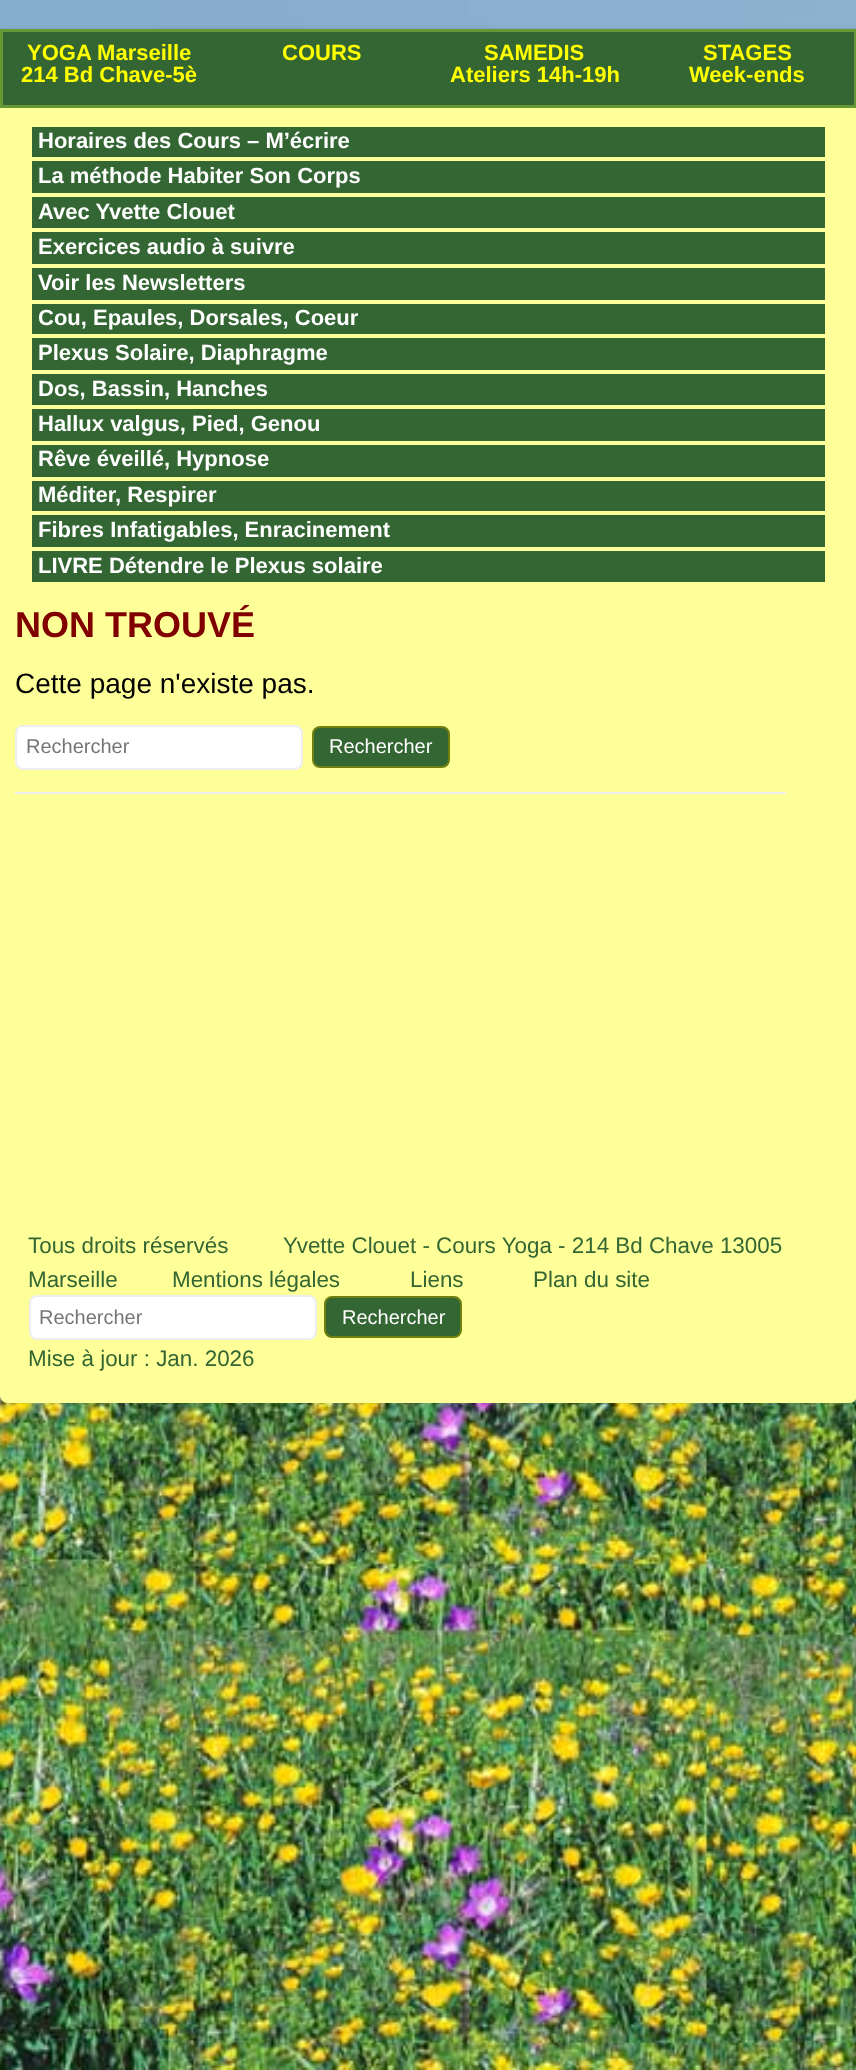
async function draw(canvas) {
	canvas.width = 856;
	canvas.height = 2070;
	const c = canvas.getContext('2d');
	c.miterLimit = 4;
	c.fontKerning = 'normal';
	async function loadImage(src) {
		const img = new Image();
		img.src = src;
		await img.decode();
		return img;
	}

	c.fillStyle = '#fff';
	c.fillRect(0, 0, 856, 2070);
	c.drawImage(await loadImage('img1.png'), 0, 0, 856, 2070);
	c.save();
	c.beginPath();
	c.moveTo(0, 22);
	c.lineTo(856, 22);
	c.lineTo(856, 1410);
	c.lineTo(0, 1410);
	c.closePath();
	c.moveTo(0, 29);
	c.lineTo(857, 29);
	c.lineTo(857, 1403);
	c.lineTo(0, 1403);
	c.closePath();
	c.clip('evenodd');
	c.fillStyle = '#00000026';
	c.filter = 'blur(2px)';
	c.beginPath();
	c.rect(0, 29, 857, 1374);
	c.fill();
	c.filter = 'none';
	c.restore();
	c.fillStyle = '#693';
	c.fillRect(0, 29, 856, 79);
	c.fillStyle = '#363';
	c.fillRect(3, 32, 851, 73);
	c.font = 'bold 22px Liberation Sans';
	c.fillStyle = '#ff0';
	for (const [text, x, y] of [
		['YOGA Marseille', 27, 60],
		['214 Bd Chave-5è', 21, 82],
		['COURS', 282, 60],
		['SAMEDIS', 484, 60],
		['Ateliers 14h-19h', 450, 82],
		['STAGES', 703, 60],
		['Week-ends', 689, 82],
	]) {
		c.fillText(text, x, y);
	}
	c.fillStyle = '#ff9';
	c.beginPath();
	c.moveTo(0, 108);
	c.lineTo(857, 108);
	c.lineTo(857, 1395);
	c.bezierCurveTo(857, 1399.5, 853.5, 1403, 849, 1403);
	c.lineTo(8, 1403);
	c.bezierCurveTo(3.5, 1403, 0, 1399.5, 0, 1395);
	c.closePath();
	c.fill();
	c.fillStyle = '#363';
	c.fillRect(32, 127, 793, 455);
	c.strokeStyle = '#ff9';
	c.lineWidth = 2;
	c.strokeRect(31, 126, 795, 32);
	c.fillStyle = '#fff';
	c.fillText('Horaires des Cours – M’écrire', 38, 148);
	c.strokeRect(31, 160, 795, 34);
	c.fillText('La méthode Habiter Son Corps', 38, 183);
	c.strokeRect(31, 196, 795, 33);
	c.fillText('Avec Yvette Clouet', 38, 219);
	c.strokeRect(31, 231, 795, 34);
	c.fillText('Exercices audio à suivre', 38, 254);
	c.strokeRect(31, 267, 795, 34);
	c.fillText('Voir les Newsletters', 38, 290);
	c.strokeRect(31, 303, 795, 32);
	c.fillText('Cou, Epaules, Dorsales, Coeur', 38, 325);
	c.strokeRect(31, 337, 795, 34);
	c.fillText('Plexus Solaire, Diaphragme', 38, 360);
	c.strokeRect(31, 373, 795, 33);
	c.fillText('Dos, Bassin, Hanches', 38, 396);
	c.strokeRect(31, 408, 795, 34);
	c.fillText('Hallux valgus, Pied, Genou', 38, 431);
	c.strokeRect(31, 444, 795, 34);
	c.fillText('Rêve éveillé, Hypnose', 38, 466);
	c.strokeRect(31, 480, 795, 32);
	c.fillText('Méditer, Respirer', 38, 502);
	c.strokeRect(31, 514, 795, 34);
	c.fillText('Fibres Infatigables, Enracinement', 38, 537);
	c.strokeRect(31, 550, 795, 33);
	c.fillText('LIVRE Détendre le Plexus solaire', 38, 573);
	c.fillStyle = '#eee';
	c.fillRect(15, 792, 771, 2);
	c.font = 'bold 36px Liberation Sans';
	c.fillStyle = '#800000';
	c.fillText('NON TROUVÉ', 15, 637);
	c.font = '28px Liberation Sans';
	c.fillStyle = '#000';
	c.fillText('Cette page n\'existe pas.', 15, 693);
	c.fillStyle = '#fff';
	c.beginPath();
	c.roundRect(16, 726, 286, 43, 7);
	c.fill();
	c.strokeStyle = '#eee';
	c.stroke();
	c.font = '20px Liberation Sans';
	c.fillStyle = '#757575';
	c.fillText('Rechercher', 26, 753);
	c.fillStyle = '#363';
	c.beginPath();
	c.roundRect(313, 727, 136, 40, 7);
	c.fill();
	c.strokeStyle = '#70800e';
	c.stroke();
	c.fillStyle = '#fff';
	c.fillText('Rechercher', 329, 753);
	c.font = '22.4px Liberation Sans';
	c.fillStyle = '#363';
	for (const [text, x, y] of [
		['Tous droits réservés', 28, 1253],
		['Yvette Clouet - Cours Yoga - 214 Bd Chave 13005', 283, 1253],
		['Marseille', 28, 1287],
		['Mentions légales', 172, 1287],
		['Liens', 410, 1287],
		['Plan du site', 533, 1287],
	]) {
		c.fillText(text, x, y);
	}
	c.fillStyle = '#fff';
	c.beginPath();
	c.roundRect(30, 1296, 286, 43, 7);
	c.fill();
	c.strokeStyle = '#eee';
	c.stroke();
	c.font = '20px Liberation Sans';
	c.fillStyle = '#757575';
	c.fillText('Rechercher', 39, 1324);
	c.fillStyle = '#363';
	c.beginPath();
	c.roundRect(325, 1297, 136, 40, 7);
	c.fill();
	c.strokeStyle = '#70800e';
	c.stroke();
	c.fillStyle = '#fff';
	c.fillText('Rechercher', 342, 1324);
	c.font = '22.4px Liberation Sans';
	c.fillStyle = '#363';
	c.fillText('Mise à jour : Jan. 2026', 28, 1366);
}

draw(document.querySelector('canvas'));
